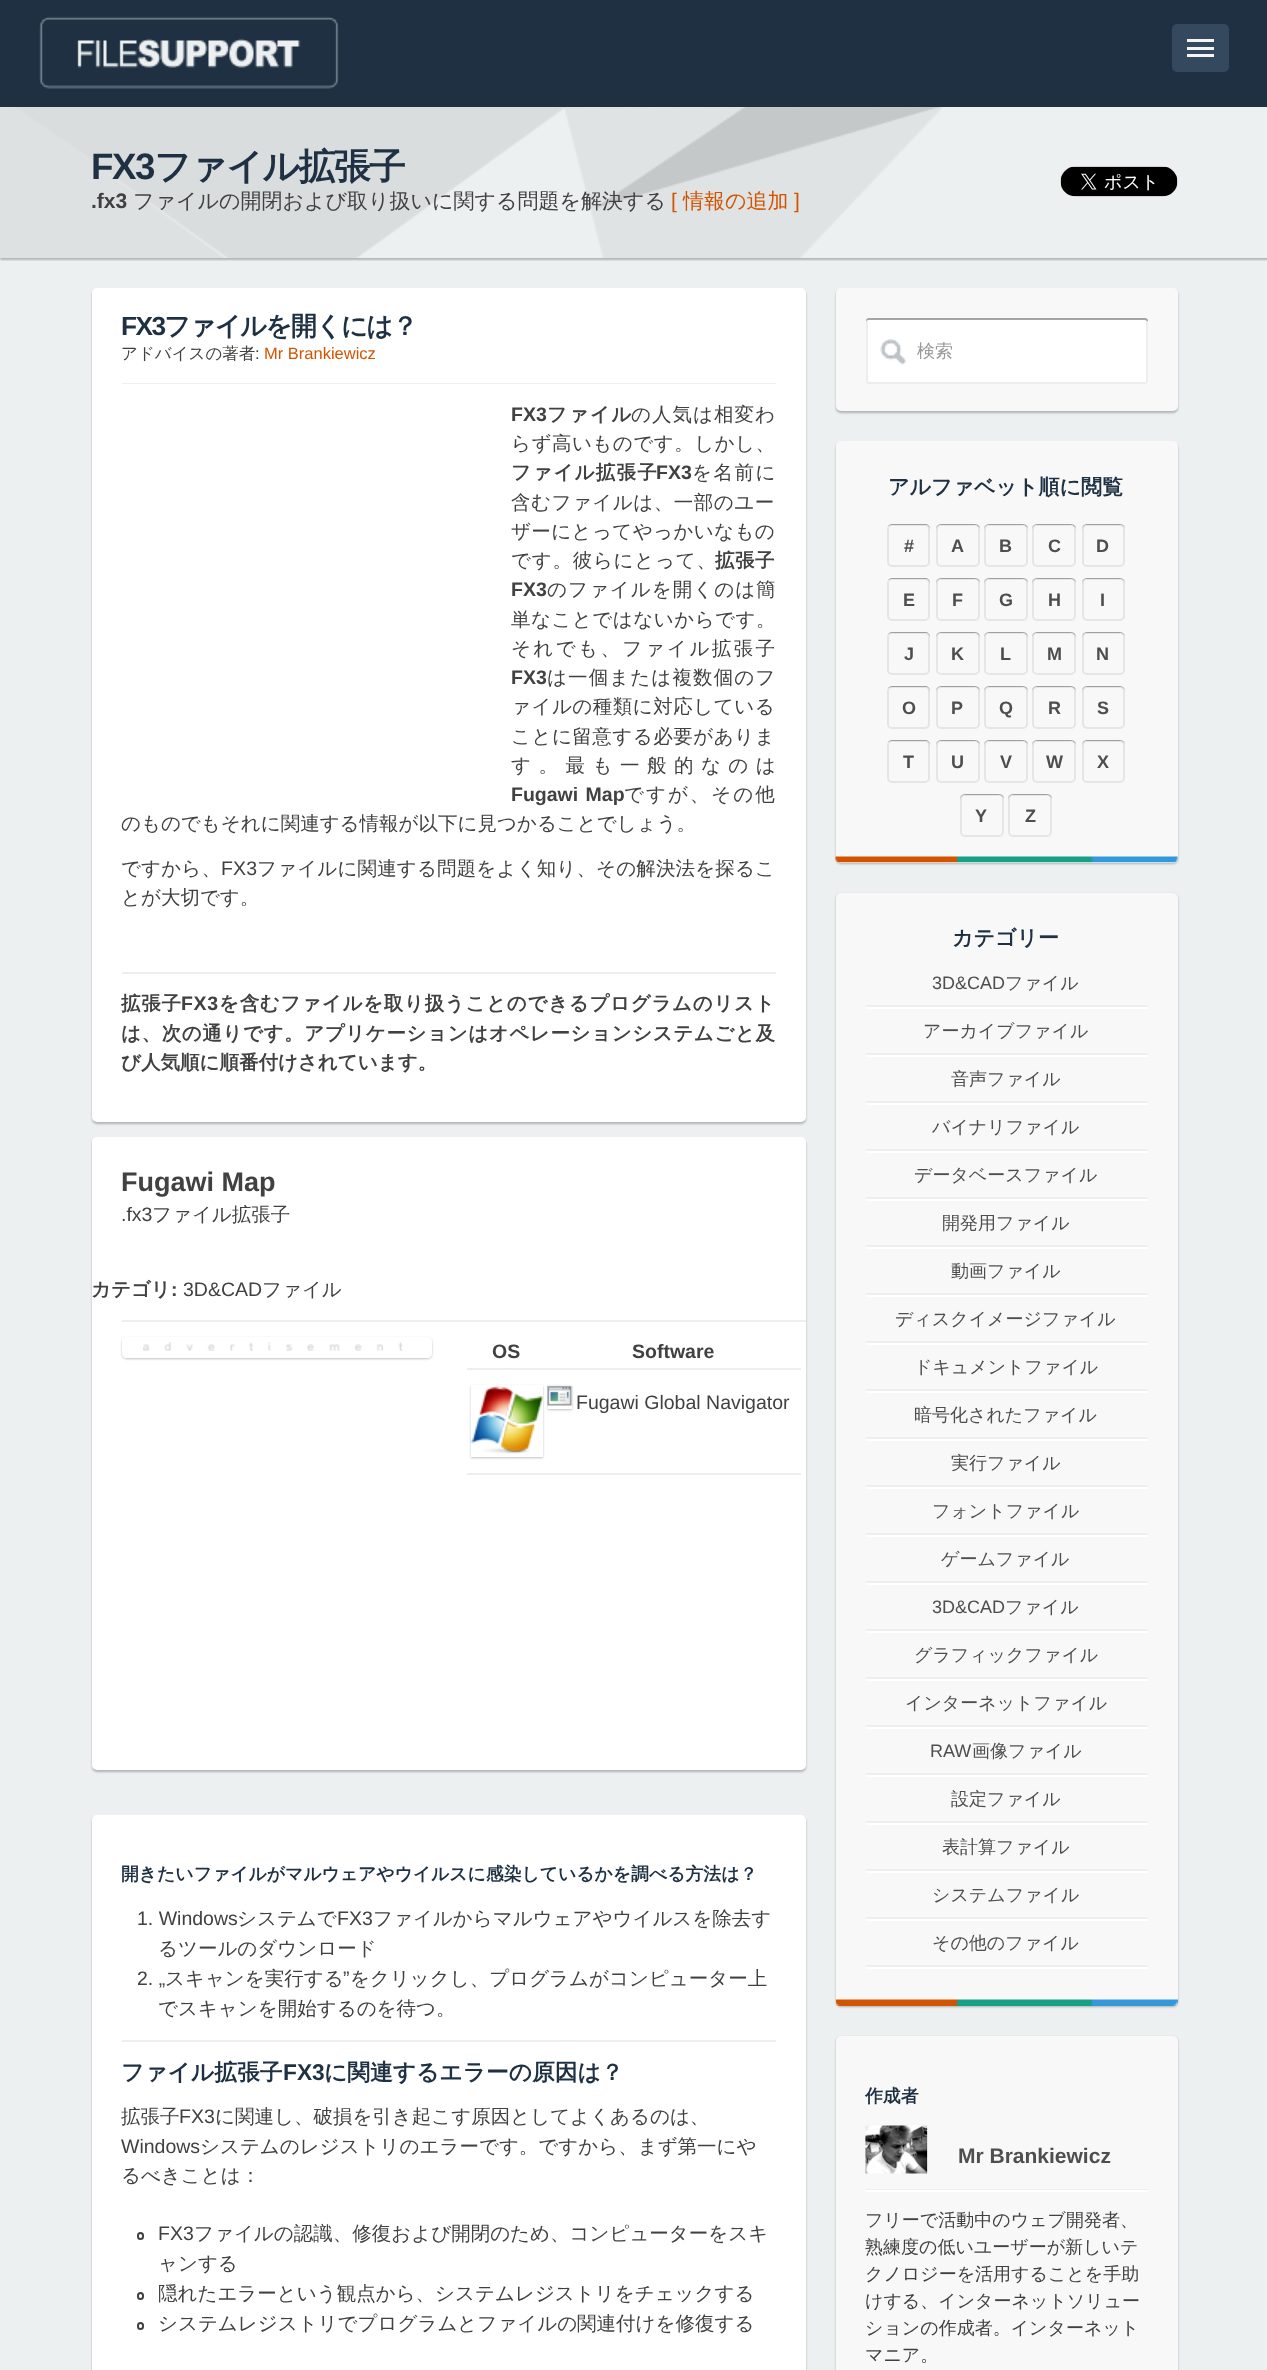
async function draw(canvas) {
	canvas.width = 1267;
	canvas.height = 2370;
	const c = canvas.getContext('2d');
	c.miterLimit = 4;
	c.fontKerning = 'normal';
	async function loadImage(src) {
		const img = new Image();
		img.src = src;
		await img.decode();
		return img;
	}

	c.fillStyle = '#ecf0f1';
	c.fillRect(0, 0, 1267, 2370);
	c.fillStyle = '#1e3042';
	c.fillRect(0, 0, 1267, 107);
	c.drawImage(await loadImage('img1.png'), 39, 16, 300, 73);
	c.fillStyle = '#34495e';
	c.beginPath();
	c.roundRect(1172, 24, 57, 48, 5);
	c.fill();
	for (const [x, y, w, h, color] of [
		[1187, 39, 27, 3, '#f5f5f5'],
		[1187, 47, 27, 3, '#f5f5f5'],
		[1187, 54, 27, 3, '#f5f5f5'],
	]) {
		c.fillStyle = color;
		c.fillRect(x, y, w, h);
	}
	c.save();
	c.beginPath();
	c.rect(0, 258, 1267, 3);
	c.clip();
	c.fillStyle = '#00000040';
	c.filter = 'blur(1px)';
	c.beginPath();
	c.rect(0, 108, 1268, 152);
	c.fill();
	c.filter = 'none';
	c.restore();
	c.drawImage(await loadImage('img2.png'), 0, 107, 943, 151);
	c.letterSpacing = '-1.5px';
	c.font = 'bold 36.75px Liberation Sans';
	c.fillStyle = '#1e3042';
	c.fillText('FX3', 91, 179);
	c.font = 'bold 36.75px WenQuanYi Zen Hei';
	c.fillText('ファイル拡張子', 154, 179);
	c.letterSpacing = '0px';
	c.font = 'bold 21px Liberation Sans';
	c.fillStyle = '#414141';
	c.fillText('.fx3', 91, 208);
	c.font = '500 21px WenQuanYi Zen Hei';
	c.fillText('ファイルの開閉および取り扱いに関する問題を解決する', 133, 208);
	c.font = '21px Liberation Sans';
	c.fillStyle = '#d35400';
	c.fillText('[', 671, 208);
	c.font = '500 21px WenQuanYi Zen Hei';
	c.fillText('情報の追加', 683, 208);
	c.font = '21px Liberation Sans';
	c.fillText(']', 794, 208);
	c.drawImage(await loadImage('img3.png'), 1060, 166, 118, 31);
	c.fillStyle = '#00000040';
	c.filter = 'blur(1px)';
	c.beginPath();
	c.roundRect(92, 290, 714, 834, 5);
	c.fill();
	c.filter = 'none';
	c.fillStyle = '#fff';
	c.beginPath();
	c.roundRect(92, 288, 714, 834, 5);
	c.fill();
	c.letterSpacing = '-1.5px';
	c.font = 'bold 26.25px Liberation Sans';
	c.fillStyle = '#1e3042';
	c.fillText('FX3', 121, 335);
	c.font = 'bold 26.25px WenQuanYi Zen Hei';
	c.fillText('ファイルを開くには？', 164, 335);
	c.letterSpacing = '0px';
	c.font = '500 16.5px WenQuanYi Zen Hei';
	c.fillStyle = '#414141';
	c.fillText('アドバイスの著者', 121, 359);
	c.font = '16.5px Liberation Sans';
	c.fillText(':', 255, 359);
	c.fillStyle = '#d35400';
	c.fillText('Mr Brankiewicz', 264, 359);
	c.fillStyle = '#eee';
	c.fillRect(122, 383, 654, 1);
	c.font = 'bold 19.5px Liberation Sans';
	c.fillStyle = '#414141';
	c.fillText('FX3', 511, 421);
	c.letterSpacing = '1.5px';
	c.font = 'bold 19.5px WenQuanYi Zen Hei';
	c.fillText('ファイル', 547, 421);
	c.letterSpacing = '1px';
	c.font = '500 19.5px WenQuanYi Zen Hei';
	c.fillText('の人気は相変わ', 631, 421);
	c.letterSpacing = '0.5px';
	c.fillText('らず高いものです。しかし、', 511, 450);
	c.letterSpacing = '1.25px';
	c.font = 'bold 19.5px WenQuanYi Zen Hei';
	c.fillText('ファイル拡張子', 511, 479);
	c.letterSpacing = '0px';
	c.font = 'bold 19.5px Liberation Sans';
	c.fillText('FX3', 656, 479);
	c.letterSpacing = '1.5px';
	c.font = '500 19.5px WenQuanYi Zen Hei';
	c.fillText('を名前に', 692, 479);
	c.letterSpacing = '0.5px';
	c.fillText('含むファイルは、一部のユー', 511, 509);
	c.letterSpacing = '0.4px';
	c.fillText('ザーにとってやっかいなもの', 511, 538);
	c.letterSpacing = '0.75px';
	c.fillText('です。彼らにとって、', 511, 567);
	c.letterSpacing = '0.5px';
	c.font = 'bold 19.5px WenQuanYi Zen Hei';
	c.fillText('拡張子', 715, 567);
	c.letterSpacing = '0px';
	c.font = 'bold 19.5px Liberation Sans';
	c.fillText('FX3', 511, 596);
	c.letterSpacing = '1px';
	c.font = '500 19.5px WenQuanYi Zen Hei';
	c.fillText('のファイルを開くのは簡', 547, 596);
	c.letterSpacing = '0.5px';
	c.fillText('単なことではないからです。', 511, 626);
	c.letterSpacing = '2.4px';
	c.fillText('それでも、ファイル拡張子', 511, 655);
	c.letterSpacing = '0px';
	c.font = 'bold 19.5px Liberation Sans';
	c.fillText('FX3', 511, 684);
	c.letterSpacing = '1.1px';
	c.font = '500 19.5px WenQuanYi Zen Hei';
	c.fillText('は一個または複数個のフ', 547, 684);
	c.letterSpacing = '0.5px';
	c.fillText('ァイルの種類に対応している', 511, 713);
	c.fillText('ことに留意する必要がありま', 511, 743);
	c.letterSpacing = '7.5px';
	c.fillText('す。最も一般的なのは', 511, 772);
	c.letterSpacing = '0px';
	c.wordSpacing = '2px';
	c.font = 'bold 19.5px Liberation Sans';
	c.fillText('Fugawi Map', 511, 801);
	c.letterSpacing = '2px';
	c.wordSpacing = '0px';
	c.font = '500 19.5px WenQuanYi Zen Hei';
	c.fillText('ですが、その他', 624, 801);
	c.letterSpacing = '0px';
	c.fillText('のものでもそれに関連する情報が以下に見つかることでしょう。', 121, 830);
	c.letterSpacing = '0.15px';
	c.fillText('ですから、', 121, 875);
	c.font = '19.5px Liberation Sans';
	c.fillText('FX3', 221, 875);
	c.font = '500 19.5px WenQuanYi Zen Hei';
	c.fillText('ファイルに関連する問題をよく知り、その解決法を探るこ', 257, 875);
	c.letterSpacing = '0px';
	c.fillText('とが大切です。', 121, 904);
	c.fillStyle = '#eee';
	c.fillRect(122, 972, 654, 2);
	c.letterSpacing = '0.7px';
	c.font = 'bold 19.5px WenQuanYi Zen Hei';
	c.fillStyle = '#414141';
	c.fillText('拡張子', 121, 1010);
	c.font = 'bold 19.5px Liberation Sans';
	c.fillText('FX3', 181, 1010);
	c.font = 'bold 19.5px WenQuanYi Zen Hei';
	c.fillText('を含むファイルを取り扱うことのできるプログラムのリスト', 219, 1010);
	c.letterSpacing = '0.6px';
	c.fillText('は、次の通りです。アプリケーションはオペレーションシステムごと及', 121, 1040);
	c.letterSpacing = '0px';
	c.fillText('び人気順に順番付けされています。', 121, 1069);
	c.fillStyle = '#00000040';
	c.filter = 'blur(1px)';
	c.beginPath();
	c.roundRect(92, 1139, 714, 633, 5);
	c.fill();
	c.filter = 'none';
	c.fillStyle = '#fff';
	c.beginPath();
	c.roundRect(92, 1137, 714, 633, 5);
	c.fill();
	c.font = 'bold 27px Liberation Sans';
	c.fillStyle = '#414141';
	c.fillText('Fugawi Map', 121, 1191);
	c.font = '19.5px Liberation Sans';
	c.fillText('.fx3', 121, 1221);
	c.font = '500 19.5px WenQuanYi Zen Hei';
	c.fillText('ファイル拡張子', 152, 1221);
	c.font = 'bold 19.5px WenQuanYi Zen Hei';
	c.fillText('カテゴリ', 91, 1296);
	c.font = 'bold 19.5px Liberation Sans';
	c.fillText(':', 171, 1296);
	c.font = '19.5px Liberation Sans';
	c.fillText('3D&CAD', 183, 1296);
	c.font = '500 19.5px WenQuanYi Zen Hei';
	c.fillText('ファイル', 262, 1296);
	c.save();
	c.beginPath();
	c.moveTo(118, 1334);
	c.lineTo(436, 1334);
	c.lineTo(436, 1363);
	c.lineTo(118, 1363);
	c.closePath();
	c.moveTo(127, 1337);
	c.lineTo(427, 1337);
	c.bezierCurveTo(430, 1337, 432, 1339, 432, 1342);
	c.lineTo(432, 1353);
	c.bezierCurveTo(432, 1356, 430, 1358, 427, 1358);
	c.lineTo(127, 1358);
	c.bezierCurveTo(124, 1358, 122, 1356, 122, 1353);
	c.lineTo(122, 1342);
	c.bezierCurveTo(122, 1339, 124, 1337, 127, 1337);
	c.closePath();
	c.clip('evenodd');
	c.fillStyle = '#00000040';
	c.filter = 'blur(1px)';
	c.beginPath();
	c.roundRect(122, 1338, 310, 21, 5);
	c.fill();
	c.filter = 'none';
	c.restore();
	c.beginPath();
	c.roundRect(124.5, 1339.5, 305, 16, 2.5);
	c.strokeStyle = '#fff';
	c.lineWidth = 5;
	c.stroke();
	c.drawImage(await loadImage('img4.png'), 143, 1342, 260, 9);
	c.fillStyle = '#eee';
	c.fillRect(122, 1320, 684, 2);
	c.font = 'bold 19.5px Liberation Sans';
	c.fillStyle = '#414141';
	c.fillText('OS', 492, 1358);
	c.fillStyle = '#eee';
	c.fillRect(467, 1368, 334, 2);
	c.fillStyle = '#414141';
	c.fillText('Software', 632, 1358);
	c.save();
	c.beginPath();
	c.moveTo(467, 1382);
	c.lineTo(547, 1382);
	c.lineTo(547, 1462);
	c.lineTo(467, 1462);
	c.closePath();
	c.moveTo(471, 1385);
	c.lineTo(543, 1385);
	c.lineTo(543, 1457);
	c.lineTo(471, 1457);
	c.closePath();
	c.clip('evenodd');
	c.fillStyle = '#00000040';
	c.filter = 'blur(1px)';
	c.beginPath();
	c.rect(471, 1386, 72, 72);
	c.fill();
	c.filter = 'none';
	c.restore();
	c.drawImage(await loadImage('img5.png'), 470, 1385, 73, 69);
	c.fillStyle = '#eee';
	c.fillRect(467, 1473, 334, 2);
	c.save();
	c.beginPath();
	c.moveTo(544, 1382);
	c.lineTo(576, 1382);
	c.lineTo(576, 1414);
	c.lineTo(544, 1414);
	c.closePath();
	c.moveTo(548, 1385);
	c.lineTo(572, 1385);
	c.lineTo(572, 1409);
	c.lineTo(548, 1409);
	c.closePath();
	c.clip('evenodd');
	c.fillStyle = '#00000040';
	c.filter = 'blur(1px)';
	c.beginPath();
	c.rect(548, 1386, 24, 24);
	c.fill();
	c.filter = 'none';
	c.restore();
	c.drawImage(await loadImage('img6.png'), 547, 1385, 25, 21);
	c.font = '19.5px Liberation Sans';
	c.fillStyle = '#414141';
	c.fillText('Fugawi Global Navigator', 576, 1409);
	c.fillStyle = '#00000040';
	c.filter = 'blur(1px)';
	c.beginPath();
	c.roundRect(92, 1817, 714, 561, 5);
	c.fill();
	c.filter = 'none';
	c.fillStyle = '#fff';
	c.beginPath();
	c.roundRect(92, 1815, 714, 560, 5);
	c.fill();
	c.font = 'bold 17.85px WenQuanYi Zen Hei';
	c.fillStyle = '#1e3042';
	c.fillText('開きたいファイルがマルウェアやウイルスに感染しているかを調べる方法は？', 121, 1880);
	c.font = '19.5px Liberation Sans';
	c.fillStyle = '#414141';
	c.fillText('1. Windows', 137, 1925);
	c.font = '500 19.5px WenQuanYi Zen Hei';
	c.fillText('システムで', 237, 1925);
	c.font = '19.5px Liberation Sans';
	c.fillText('FX3', 337, 1925);
	c.font = '500 19.5px WenQuanYi Zen Hei';
	c.fillText('ファイルからマルウェアやウイルスを除去す', 373, 1925);
	c.fillText('るツールのダウンロード', 158, 1955);
	c.font = '19.5px Liberation Sans';
	c.fillText('2. „', 137, 1985);
	c.font = '500 19.5px WenQuanYi Zen Hei';
	c.fillText('スキャンを実行する', 165, 1985);
	c.font = '19.5px Liberation Sans';
	c.fillText('”', 343, 1985);
	c.font = '500 19.5px WenQuanYi Zen Hei';
	c.fillText('をクリックし、プログラムがコンピューター上', 350, 1985);
	c.fillText('でスキャンを開始するのを待つ。', 158, 2015);
	c.fillStyle = '#eee';
	c.fillRect(122, 2040, 654, 2);
	c.font = 'bold 22.75px WenQuanYi Zen Hei';
	c.fillStyle = '#1e3042';
	c.fillText('ファイル拡張子', 121, 2080);
	c.font = 'bold 22.75px Liberation Sans';
	c.fillText('FX3', 283, 2080);
	c.font = 'bold 22.75px WenQuanYi Zen Hei';
	c.fillText('に関連するエラーの原因は？', 324, 2080);
	c.font = '500 19.5px WenQuanYi Zen Hei';
	c.fillStyle = '#414141';
	c.fillText('拡張子', 121, 2123);
	c.font = '19.5px Liberation Sans';
	c.fillText('FX3', 179, 2123);
	c.font = '500 19.5px WenQuanYi Zen Hei';
	c.fillText('に関連し、破損を引き起こす原因としてよくあるのは、', 215, 2123);
	c.font = '19.5px Liberation Sans';
	c.fillText('Windows', 121, 2153);
	c.font = '500 19.5px WenQuanYi Zen Hei';
	c.fillText('システムのレジストリのエラーです。ですから、まず第一にや', 200, 2153);
	c.fillText('るべきことは：', 121, 2182);
	c.beginPath();
	c.roundRect(138, 2233, 5, 6, 2.5);
	c.strokeStyle = '#414141';
	c.lineWidth = 2;
	c.stroke();
	c.font = '19.5px Liberation Sans';
	c.fillText('FX3', 158, 2240);
	c.font = '500 19.5px WenQuanYi Zen Hei';
	c.fillText('ファイルの認識、修復および開閉のため、コンピューターをスキ', 194, 2240);
	c.fillText('ャンする', 158, 2270);
	c.beginPath();
	c.roundRect(138, 2293, 5, 6, 2.5);
	c.stroke();
	c.fillText('隠れたエラーという観点から、システムレジストリをチェックする', 158, 2300);
	c.beginPath();
	c.roundRect(138, 2323, 5, 6, 2.5);
	c.stroke();
	c.fillText('システムレジストリでプログラムとファイルの関連付けを修復する', 158, 2330);
	c.fillStyle = '#00000040';
	c.filter = 'blur(1px)';
	c.beginPath();
	c.roundRect(836, 290, 342, 123, 5);
	c.fill();
	c.filter = 'none';
	c.fillStyle = '#f8f8f8';
	c.beginPath();
	c.roundRect(836, 288, 342, 123, 5);
	c.fill();
	c.fillStyle = '#fff';
	c.beginPath();
	c.roundRect(866, 318, 282, 66, 3);
	c.fill();
	c.drawImage(await loadImage('img7.png'), 880, 339, 26, 26);
	c.beginPath();
	c.roundRect(867, 319, 280, 64, 2);
	c.strokeStyle = '#00000012';
	c.stroke();
	c.fillStyle = '#0000004d';
	c.beginPath();
	c.moveTo(868, 320);
	c.lineTo(1144, 320);
	c.bezierCurveTo(1146, 320, 1148, 321, 1148, 322);
	c.lineTo(1148, 321);
	c.bezierCurveTo(1148, 319, 1147, 318, 1145, 318);
	c.lineTo(869, 318);
	c.bezierCurveTo(867, 318, 866, 319, 866, 321);
	c.lineTo(866, 322);
	c.bezierCurveTo(866, 321, 867, 320, 868, 320);
	c.closePath();
	c.fill();
	c.font = '500 18px WenQuanYi Zen Hei';
	c.fillStyle = '#999';
	c.fillText('検索', 917, 357);
	c.fillStyle = '#00000040';
	c.filter = 'blur(1px)';
	c.beginPath();
	c.roundRect(836, 443, 342, 421, 5);
	c.fill();
	c.filter = 'none';
	c.fillStyle = '#f8f8f8';
	c.beginPath();
	c.roundRect(836, 441, 342, 422, 5);
	c.fill();
	c.drawImage(await loadImage('img8.png'), 835, 856, 343, 7);
	c.font = 'bold 21px WenQuanYi Zen Hei';
	c.fillStyle = '#1e3042';
	c.fillText('アルファベット順に閲覧', 888, 494);
	c.beginPath();
	c.roundRect(888, 525, 41, 41, 4);
	c.strokeStyle = '#e5e5e5';
	c.stroke();
	c.fillStyle = '#0000004d';
	c.beginPath();
	c.moveTo(891, 525);
	c.lineTo(926, 525);
	c.bezierCurveTo(928, 525, 930, 527, 930, 530);
	c.lineTo(930, 529);
	c.bezierCurveTo(930, 526, 928, 524, 925, 524);
	c.lineTo(892, 524);
	c.bezierCurveTo(890, 524, 889, 525, 888, 526);
	c.closePath();
	c.fill();
	c.font = 'bold 18px Liberation Sans';
	c.fillStyle = '#4e4e4e';
	c.fillText('#', 904, 552);
	c.beginPath();
	c.roundRect(937, 525, 42, 41, 4);
	c.strokeStyle = '#e6e6e6';
	c.stroke();
	c.fillStyle = '#0000004d';
	c.beginPath();
	c.moveTo(940, 525);
	c.lineTo(975, 525);
	c.bezierCurveTo(977, 525, 980, 527, 980, 530);
	c.bezierCurveTo(980, 523, 975, 524, 969, 524);
	c.lineTo(947, 524);
	c.bezierCurveTo(941, 524, 936, 523, 936, 530);
	c.bezierCurveTo(936, 527, 938, 525, 940, 525);
	c.closePath();
	c.fill();
	c.fillStyle = '#4e4e4e';
	c.fillText('A', 951, 552);
	c.beginPath();
	c.roundRect(985, 525, 42, 41, 4);
	c.stroke();
	c.fillStyle = '#0000004d';
	c.beginPath();
	c.moveTo(988, 525);
	c.lineTo(1023, 525);
	c.bezierCurveTo(1025, 525, 1028, 527, 1028, 530);
	c.bezierCurveTo(1028, 523, 1023, 524, 1017, 524);
	c.lineTo(995, 524);
	c.bezierCurveTo(989, 524, 984, 523, 984, 530);
	c.bezierCurveTo(984, 527, 986, 525, 988, 525);
	c.closePath();
	c.fill();
	c.fillStyle = '#4e4e4e';
	c.fillText('B', 999, 552);
	c.beginPath();
	c.roundRect(1033, 525, 42, 41, 4);
	c.stroke();
	c.fillStyle = '#0000004d';
	c.beginPath();
	c.moveTo(1036, 525);
	c.lineTo(1071, 525);
	c.bezierCurveTo(1073, 525, 1076, 527, 1076, 530);
	c.bezierCurveTo(1076, 523, 1071, 524, 1065, 524);
	c.lineTo(1043, 524);
	c.bezierCurveTo(1037, 524, 1032, 523, 1032, 530);
	c.bezierCurveTo(1032, 527, 1034, 525, 1036, 525);
	c.closePath();
	c.fill();
	c.fillStyle = '#4e4e4e';
	c.fillText('C', 1048, 552);
	c.beginPath();
	c.roundRect(1083, 525, 41, 41, 4);
	c.strokeStyle = '#e5e5e5';
	c.stroke();
	c.fillStyle = '#0000004d';
	c.beginPath();
	c.moveTo(1086, 525);
	c.lineTo(1120, 525);
	c.bezierCurveTo(1123, 525, 1125, 527, 1125, 530);
	c.bezierCurveTo(1125, 523, 1120, 524, 1114, 524);
	c.lineTo(1092, 524);
	c.bezierCurveTo(1087, 524, 1082, 523, 1082, 530);
	c.bezierCurveTo(1082, 527, 1084, 525, 1086, 525);
	c.closePath();
	c.fill();
	c.fillStyle = '#4e4e4e';
	c.fillText('D', 1096, 552);
	c.beginPath();
	c.roundRect(888, 579, 41, 41, 4);
	c.stroke();
	c.fillStyle = '#0000004d';
	c.beginPath();
	c.moveTo(891, 579);
	c.lineTo(926, 579);
	c.bezierCurveTo(928, 579, 930, 581, 930, 584);
	c.lineTo(930, 583);
	c.bezierCurveTo(930, 580, 928, 578, 925, 578);
	c.lineTo(892, 578);
	c.bezierCurveTo(890, 578, 889, 579, 888, 580);
	c.closePath();
	c.fill();
	c.fillStyle = '#4e4e4e';
	c.fillText('E', 903, 606);
	c.beginPath();
	c.roundRect(937, 579, 42, 41, 4);
	c.strokeStyle = '#e6e6e6';
	c.stroke();
	c.fillStyle = '#0000004d';
	c.beginPath();
	c.moveTo(940, 579);
	c.lineTo(975, 579);
	c.bezierCurveTo(977, 579, 980, 581, 980, 584);
	c.bezierCurveTo(980, 577, 975, 578, 969, 578);
	c.lineTo(947, 578);
	c.bezierCurveTo(941, 578, 936, 577, 936, 584);
	c.bezierCurveTo(936, 581, 938, 579, 940, 579);
	c.closePath();
	c.fill();
	c.fillStyle = '#4e4e4e';
	c.fillText('F', 952, 606);
	c.beginPath();
	c.roundRect(985, 579, 42, 41, 4);
	c.stroke();
	c.fillStyle = '#0000004d';
	c.beginPath();
	c.moveTo(988, 579);
	c.lineTo(1023, 579);
	c.bezierCurveTo(1025, 579, 1028, 581, 1028, 584);
	c.bezierCurveTo(1028, 577, 1023, 578, 1017, 578);
	c.lineTo(995, 578);
	c.bezierCurveTo(989, 578, 984, 577, 984, 584);
	c.bezierCurveTo(984, 581, 986, 579, 988, 579);
	c.closePath();
	c.fill();
	c.fillStyle = '#4e4e4e';
	c.fillText('G', 999, 606);
	c.beginPath();
	c.roundRect(1033, 579, 42, 41, 4);
	c.stroke();
	c.fillStyle = '#0000004d';
	c.beginPath();
	c.moveTo(1036, 579);
	c.lineTo(1071, 579);
	c.bezierCurveTo(1073, 579, 1076, 581, 1076, 584);
	c.bezierCurveTo(1076, 577, 1071, 578, 1065, 578);
	c.lineTo(1043, 578);
	c.bezierCurveTo(1037, 578, 1032, 577, 1032, 584);
	c.bezierCurveTo(1032, 581, 1034, 579, 1036, 579);
	c.closePath();
	c.fill();
	c.fillStyle = '#4e4e4e';
	c.fillText('H', 1048, 606);
	c.beginPath();
	c.roundRect(1083, 579, 41, 41, 4);
	c.strokeStyle = '#e5e5e5';
	c.stroke();
	c.fillStyle = '#0000004d';
	c.beginPath();
	c.moveTo(1086, 579);
	c.lineTo(1120, 579);
	c.bezierCurveTo(1123, 579, 1125, 581, 1125, 584);
	c.bezierCurveTo(1125, 577, 1120, 578, 1114, 578);
	c.lineTo(1092, 578);
	c.bezierCurveTo(1087, 578, 1082, 577, 1082, 584);
	c.bezierCurveTo(1082, 581, 1084, 579, 1086, 579);
	c.closePath();
	c.fill();
	c.fillStyle = '#4e4e4e';
	c.fillText('I', 1100, 606);
	c.beginPath();
	c.roundRect(888, 633, 41, 41, 4);
	c.stroke();
	c.fillStyle = '#0000004d';
	c.beginPath();
	c.moveTo(891, 633);
	c.lineTo(926, 633);
	c.bezierCurveTo(928, 633, 930, 635, 930, 638);
	c.lineTo(930, 637);
	c.bezierCurveTo(930, 634, 928, 632, 925, 632);
	c.lineTo(892, 632);
	c.bezierCurveTo(890, 632, 889, 633, 888, 634);
	c.closePath();
	c.fill();
	c.fillStyle = '#4e4e4e';
	c.fillText('J', 904, 660);
	c.beginPath();
	c.roundRect(937, 633, 42, 41, 4);
	c.strokeStyle = '#e6e6e6';
	c.stroke();
	c.fillStyle = '#0000004d';
	c.beginPath();
	c.moveTo(940, 633);
	c.lineTo(975, 633);
	c.bezierCurveTo(977, 633, 980, 635, 980, 638);
	c.bezierCurveTo(980, 631, 975, 632, 969, 632);
	c.lineTo(947, 632);
	c.bezierCurveTo(941, 632, 936, 631, 936, 638);
	c.bezierCurveTo(936, 635, 938, 633, 940, 633);
	c.closePath();
	c.fill();
	c.fillStyle = '#4e4e4e';
	c.fillText('K', 951, 660);
	c.beginPath();
	c.roundRect(985, 633, 42, 41, 4);
	c.stroke();
	c.fillStyle = '#0000004d';
	c.beginPath();
	c.moveTo(988, 633);
	c.lineTo(1023, 633);
	c.bezierCurveTo(1025, 633, 1028, 635, 1028, 638);
	c.bezierCurveTo(1028, 631, 1023, 632, 1017, 632);
	c.lineTo(995, 632);
	c.bezierCurveTo(989, 632, 984, 631, 984, 638);
	c.bezierCurveTo(984, 635, 986, 633, 988, 633);
	c.closePath();
	c.fill();
	c.fillStyle = '#4e4e4e';
	c.fillText('L', 1000, 660);
	c.beginPath();
	c.roundRect(1033, 633, 42, 41, 4);
	c.stroke();
	c.fillStyle = '#0000004d';
	c.beginPath();
	c.moveTo(1036, 633);
	c.lineTo(1071, 633);
	c.bezierCurveTo(1073, 633, 1076, 635, 1076, 638);
	c.bezierCurveTo(1076, 631, 1071, 632, 1065, 632);
	c.lineTo(1043, 632);
	c.bezierCurveTo(1037, 632, 1032, 631, 1032, 638);
	c.bezierCurveTo(1032, 635, 1034, 633, 1036, 633);
	c.closePath();
	c.fill();
	c.fillStyle = '#4e4e4e';
	c.fillText('M', 1047, 660);
	c.beginPath();
	c.roundRect(1083, 633, 41, 41, 4);
	c.strokeStyle = '#e5e5e5';
	c.stroke();
	c.fillStyle = '#0000004d';
	c.beginPath();
	c.moveTo(1086, 633);
	c.lineTo(1120, 633);
	c.bezierCurveTo(1123, 633, 1125, 635, 1125, 638);
	c.bezierCurveTo(1125, 631, 1120, 632, 1114, 632);
	c.lineTo(1092, 632);
	c.bezierCurveTo(1087, 632, 1082, 631, 1082, 638);
	c.bezierCurveTo(1082, 635, 1084, 633, 1086, 633);
	c.closePath();
	c.fill();
	c.fillStyle = '#4e4e4e';
	c.fillText('N', 1096, 660);
	c.beginPath();
	c.roundRect(888, 687, 41, 41, 4);
	c.stroke();
	c.fillStyle = '#0000004d';
	c.beginPath();
	c.moveTo(891, 687);
	c.lineTo(926, 687);
	c.bezierCurveTo(928, 687, 930, 689, 930, 692);
	c.lineTo(930, 691);
	c.bezierCurveTo(930, 688, 928, 686, 925, 686);
	c.lineTo(892, 686);
	c.bezierCurveTo(890, 686, 889, 687, 888, 688);
	c.closePath();
	c.fill();
	c.fillStyle = '#4e4e4e';
	c.fillText('O', 902, 714);
	c.beginPath();
	c.roundRect(937, 687, 42, 41, 4);
	c.strokeStyle = '#e6e6e6';
	c.stroke();
	c.fillStyle = '#0000004d';
	c.beginPath();
	c.moveTo(940, 687);
	c.lineTo(975, 687);
	c.bezierCurveTo(977, 687, 980, 689, 980, 692);
	c.bezierCurveTo(980, 685, 975, 686, 969, 686);
	c.lineTo(947, 686);
	c.bezierCurveTo(941, 686, 936, 685, 936, 692);
	c.bezierCurveTo(936, 689, 938, 687, 940, 687);
	c.closePath();
	c.fill();
	c.fillStyle = '#4e4e4e';
	c.fillText('P', 951, 714);
	c.beginPath();
	c.roundRect(985, 687, 42, 41, 4);
	c.stroke();
	c.fillStyle = '#0000004d';
	c.beginPath();
	c.moveTo(988, 687);
	c.lineTo(1023, 687);
	c.bezierCurveTo(1025, 687, 1028, 689, 1028, 692);
	c.bezierCurveTo(1028, 685, 1023, 686, 1017, 686);
	c.lineTo(995, 686);
	c.bezierCurveTo(989, 686, 984, 685, 984, 692);
	c.bezierCurveTo(984, 689, 986, 687, 988, 687);
	c.closePath();
	c.fill();
	c.fillStyle = '#4e4e4e';
	c.fillText('Q', 999, 714);
	c.beginPath();
	c.roundRect(1033, 687, 42, 41, 4);
	c.stroke();
	c.fillStyle = '#0000004d';
	c.beginPath();
	c.moveTo(1036, 687);
	c.lineTo(1071, 687);
	c.bezierCurveTo(1073, 687, 1076, 689, 1076, 692);
	c.bezierCurveTo(1076, 685, 1071, 686, 1065, 686);
	c.lineTo(1043, 686);
	c.bezierCurveTo(1037, 686, 1032, 685, 1032, 692);
	c.bezierCurveTo(1032, 689, 1034, 687, 1036, 687);
	c.closePath();
	c.fill();
	c.fillStyle = '#4e4e4e';
	c.fillText('R', 1048, 714);
	c.beginPath();
	c.roundRect(1083, 687, 41, 41, 4);
	c.strokeStyle = '#e5e5e5';
	c.stroke();
	c.fillStyle = '#0000004d';
	c.beginPath();
	c.moveTo(1086, 687);
	c.lineTo(1120, 687);
	c.bezierCurveTo(1123, 687, 1125, 689, 1125, 692);
	c.bezierCurveTo(1125, 685, 1120, 686, 1114, 686);
	c.lineTo(1092, 686);
	c.bezierCurveTo(1087, 686, 1082, 685, 1082, 692);
	c.bezierCurveTo(1082, 689, 1084, 687, 1086, 687);
	c.closePath();
	c.fill();
	c.fillStyle = '#4e4e4e';
	c.fillText('S', 1097, 714);
	c.beginPath();
	c.roundRect(888, 741, 41, 41, 4);
	c.stroke();
	c.fillStyle = '#0000004d';
	c.beginPath();
	c.moveTo(891, 741);
	c.lineTo(926, 741);
	c.bezierCurveTo(928, 741, 930, 743, 930, 746);
	c.lineTo(930, 745);
	c.bezierCurveTo(930, 742, 928, 740, 925, 740);
	c.lineTo(892, 740);
	c.bezierCurveTo(890, 740, 889, 741, 888, 742);
	c.closePath();
	c.fill();
	c.fillStyle = '#4e4e4e';
	c.fillText('T', 903, 768);
	c.beginPath();
	c.roundRect(937, 741, 42, 41, 4);
	c.strokeStyle = '#e6e6e6';
	c.stroke();
	c.fillStyle = '#0000004d';
	c.beginPath();
	c.moveTo(940, 741);
	c.lineTo(975, 741);
	c.bezierCurveTo(977, 741, 980, 743, 980, 746);
	c.bezierCurveTo(980, 739, 975, 740, 969, 740);
	c.lineTo(947, 740);
	c.bezierCurveTo(941, 740, 936, 739, 936, 746);
	c.bezierCurveTo(936, 743, 938, 741, 940, 741);
	c.closePath();
	c.fill();
	c.fillStyle = '#4e4e4e';
	c.fillText('U', 951, 768);
	c.beginPath();
	c.roundRect(985, 741, 42, 41, 4);
	c.stroke();
	c.fillStyle = '#0000004d';
	c.beginPath();
	c.moveTo(988, 741);
	c.lineTo(1023, 741);
	c.bezierCurveTo(1025, 741, 1028, 743, 1028, 746);
	c.bezierCurveTo(1028, 739, 1023, 740, 1017, 740);
	c.lineTo(995, 740);
	c.bezierCurveTo(989, 740, 984, 739, 984, 746);
	c.bezierCurveTo(984, 743, 986, 741, 988, 741);
	c.closePath();
	c.fill();
	c.fillStyle = '#4e4e4e';
	c.fillText('V', 1000, 768);
	c.beginPath();
	c.roundRect(1033, 741, 42, 41, 4);
	c.stroke();
	c.fillStyle = '#0000004d';
	c.beginPath();
	c.moveTo(1036, 741);
	c.lineTo(1071, 741);
	c.bezierCurveTo(1073, 741, 1076, 743, 1076, 746);
	c.bezierCurveTo(1076, 739, 1071, 740, 1065, 740);
	c.lineTo(1043, 740);
	c.bezierCurveTo(1037, 740, 1032, 739, 1032, 746);
	c.bezierCurveTo(1032, 743, 1034, 741, 1036, 741);
	c.closePath();
	c.fill();
	c.fillStyle = '#4e4e4e';
	c.fillText('W', 1046, 768);
	c.beginPath();
	c.roundRect(1083, 741, 41, 41, 4);
	c.strokeStyle = '#e5e5e5';
	c.stroke();
	c.fillStyle = '#0000004d';
	c.beginPath();
	c.moveTo(1086, 741);
	c.lineTo(1120, 741);
	c.bezierCurveTo(1123, 741, 1125, 743, 1125, 746);
	c.bezierCurveTo(1125, 739, 1120, 740, 1114, 740);
	c.lineTo(1092, 740);
	c.bezierCurveTo(1087, 740, 1082, 739, 1082, 746);
	c.bezierCurveTo(1082, 743, 1084, 741, 1086, 741);
	c.closePath();
	c.fill();
	c.fillStyle = '#4e4e4e';
	c.fillText('X', 1097, 768);
	c.beginPath();
	c.roundRect(961, 795, 42, 41, 4);
	c.strokeStyle = '#e6e6e6';
	c.stroke();
	c.fillStyle = '#0000004d';
	c.beginPath();
	c.moveTo(964, 795);
	c.lineTo(999, 795);
	c.bezierCurveTo(1001, 795, 1004, 797, 1004, 800);
	c.bezierCurveTo(1004, 793, 999, 794, 993, 794);
	c.lineTo(971, 794);
	c.bezierCurveTo(965, 794, 960, 793, 960, 800);
	c.bezierCurveTo(960, 797, 962, 795, 964, 795);
	c.closePath();
	c.fill();
	c.fillStyle = '#4e4e4e';
	c.fillText('Y', 975, 822);
	c.beginPath();
	c.roundRect(1009, 795, 42, 41, 4);
	c.stroke();
	c.fillStyle = '#0000004d';
	c.beginPath();
	c.moveTo(1012, 795);
	c.lineTo(1047, 795);
	c.bezierCurveTo(1049, 795, 1052, 797, 1052, 800);
	c.bezierCurveTo(1052, 793, 1047, 794, 1041, 794);
	c.lineTo(1019, 794);
	c.bezierCurveTo(1013, 794, 1008, 793, 1008, 800);
	c.bezierCurveTo(1008, 797, 1010, 795, 1012, 795);
	c.closePath();
	c.fill();
	c.fillStyle = '#4e4e4e';
	c.fillText('Z', 1025, 822);
	c.fillStyle = '#00000040';
	c.filter = 'blur(1px)';
	c.beginPath();
	c.roundRect(836, 894, 342, 1113, 5);
	c.fill();
	c.filter = 'none';
	c.fillStyle = '#f8f8f8';
	c.beginPath();
	c.roundRect(836, 893, 342, 1113, 5);
	c.fill();
	c.drawImage(await loadImage('img9.png'), 836, 1999, 342, 7);
	c.font = 'bold 21px WenQuanYi Zen Hei';
	c.fillStyle = '#1e3042';
	c.fillText('カテゴリー', 952, 945);
	c.font = '18px Liberation Sans';
	c.fillStyle = '#4e4e4e';
	c.fillText('3D&CAD', 932, 989);
	c.font = '500 18px WenQuanYi Zen Hei';
	c.fillText('ファイル', 1005, 989);
	c.fillStyle = '#eee';
	c.fillRect(866, 1005, 282, 2);
	c.fillStyle = '#fff';
	c.fillRect(866, 1007, 282, 2);
	c.fillStyle = '#4e4e4e';
	c.fillText('アーカイブファイル', 923, 1037);
	c.fillStyle = '#eee';
	c.fillRect(866, 1053, 282, 2);
	c.fillStyle = '#fff';
	c.fillRect(866, 1055, 282, 2);
	c.fillStyle = '#4e4e4e';
	c.fillText('音声ファイル', 951, 1085);
	c.fillStyle = '#eee';
	c.fillRect(866, 1101, 282, 2);
	c.fillStyle = '#fff';
	c.fillRect(866, 1103, 282, 2);
	c.fillStyle = '#4e4e4e';
	c.fillText('バイナリファイル', 932, 1133);
	c.fillStyle = '#eee';
	c.fillRect(866, 1149, 282, 2);
	c.fillStyle = '#fff';
	c.fillRect(866, 1151, 282, 2);
	c.fillStyle = '#4e4e4e';
	c.fillText('データベースファイル', 914, 1181);
	c.fillStyle = '#eee';
	c.fillRect(866, 1197, 282, 2);
	c.fillStyle = '#fff';
	c.fillRect(866, 1199, 282, 2);
	c.fillStyle = '#4e4e4e';
	c.fillText('開発用ファイル', 942, 1229);
	c.fillStyle = '#eee';
	c.fillRect(866, 1245, 282, 2);
	c.fillStyle = '#fff';
	c.fillRect(866, 1247, 282, 2);
	c.fillStyle = '#4e4e4e';
	c.fillText('動画ファイル', 951, 1277);
	c.fillStyle = '#eee';
	c.fillRect(866, 1293, 282, 2);
	c.fillStyle = '#fff';
	c.fillRect(866, 1295, 282, 2);
	c.fillStyle = '#4e4e4e';
	c.fillText('ディスクイメージファイル', 895, 1325);
	c.fillStyle = '#eee';
	c.fillRect(866, 1341, 282, 2);
	c.fillStyle = '#fff';
	c.fillRect(866, 1343, 282, 2);
	c.fillStyle = '#4e4e4e';
	c.fillText('ドキュメントファイル', 914, 1373);
	c.fillStyle = '#eee';
	c.fillRect(866, 1389, 282, 2);
	c.fillStyle = '#fff';
	c.fillRect(866, 1391, 282, 2);
	c.fillStyle = '#4e4e4e';
	c.fillText('暗号化されたファイル', 914, 1421);
	c.fillStyle = '#eee';
	c.fillRect(866, 1437, 282, 2);
	c.fillStyle = '#fff';
	c.fillRect(866, 1439, 282, 2);
	c.fillStyle = '#4e4e4e';
	c.fillText('実行ファイル', 951, 1469);
	c.fillStyle = '#eee';
	c.fillRect(866, 1485, 282, 2);
	c.fillStyle = '#fff';
	c.fillRect(866, 1487, 282, 2);
	c.fillStyle = '#4e4e4e';
	c.fillText('フォントファイル', 932, 1517);
	c.fillStyle = '#eee';
	c.fillRect(866, 1533, 282, 2);
	c.fillStyle = '#fff';
	c.fillRect(866, 1535, 282, 2);
	c.fillStyle = '#4e4e4e';
	c.fillText('ゲームファイル', 941, 1565);
	c.fillStyle = '#eee';
	c.fillRect(866, 1581, 282, 2);
	c.fillStyle = '#fff';
	c.fillRect(866, 1583, 282, 2);
	c.font = '18px Liberation Sans';
	c.fillStyle = '#4e4e4e';
	c.fillText('3D&CAD', 932, 1613);
	c.font = '500 18px WenQuanYi Zen Hei';
	c.fillText('ファイル', 1005, 1613);
	c.fillStyle = '#eee';
	c.fillRect(866, 1629, 282, 2);
	c.fillStyle = '#fff';
	c.fillRect(866, 1631, 282, 2);
	c.fillStyle = '#4e4e4e';
	c.fillText('グラフィックファイル', 914, 1661);
	c.fillStyle = '#eee';
	c.fillRect(866, 1677, 282, 2);
	c.fillStyle = '#fff';
	c.fillRect(866, 1679, 282, 2);
	c.fillStyle = '#4e4e4e';
	c.fillText('インターネットファイル', 905, 1709);
	c.fillStyle = '#eee';
	c.fillRect(866, 1725, 282, 2);
	c.fillStyle = '#fff';
	c.fillRect(866, 1727, 282, 2);
	c.font = '18px Liberation Sans';
	c.fillStyle = '#4e4e4e';
	c.fillText('RAW', 930, 1757);
	c.font = '500 18px WenQuanYi Zen Hei';
	c.fillText('画像ファイル', 972, 1757);
	c.fillStyle = '#eee';
	c.fillRect(866, 1773, 282, 2);
	c.fillStyle = '#fff';
	c.fillRect(866, 1775, 282, 2);
	c.fillStyle = '#4e4e4e';
	c.fillText('設定ファイル', 951, 1805);
	c.fillStyle = '#eee';
	c.fillRect(866, 1821, 282, 2);
	c.fillStyle = '#fff';
	c.fillRect(866, 1823, 282, 2);
	c.fillStyle = '#4e4e4e';
	c.fillText('表計算ファイル', 942, 1853);
	c.fillStyle = '#eee';
	c.fillRect(866, 1869, 282, 2);
	c.fillStyle = '#fff';
	c.fillRect(866, 1871, 282, 2);
	c.fillStyle = '#4e4e4e';
	c.fillText('システムファイル', 932, 1901);
	c.fillStyle = '#eee';
	c.fillRect(866, 1917, 282, 2);
	c.fillStyle = '#fff';
	c.fillRect(866, 1919, 282, 2);
	c.fillStyle = '#4e4e4e';
	c.fillText('その他のファイル', 932, 1949);
	c.fillStyle = '#eee';
	c.fillRect(866, 1965, 282, 2);
	c.fillStyle = '#fff';
	c.fillRect(866, 1967, 282, 2);
	c.fillStyle = '#00000040';
	c.filter = 'blur(1px)';
	c.beginPath();
	c.roundRect(836, 2037, 342, 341, 5);
	c.fill();
	c.filter = 'none';
	c.fillStyle = '#f8f8f8';
	c.beginPath();
	c.roundRect(836, 2036, 342, 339, 5);
	c.fill();
	c.font = 'bold 17.85px WenQuanYi Zen Hei';
	c.fillStyle = '#1e3042';
	c.fillText('作成者', 865, 2102);
	c.drawImage(await loadImage('img10.png'), 865, 2125, 63, 49);
	c.font = 'bold 21px Liberation Sans';
	c.fillStyle = '#4e4e4e';
	c.fillText('Mr Brankiewicz', 958, 2163);
	c.fillStyle = '#eee';
	c.fillRect(866, 2189, 282, 1);
	c.fillStyle = '#fff';
	c.fillRect(866, 2190, 282, 2);
	c.font = '500 18px WenQuanYi Zen Hei';
	c.fillStyle = '#414141';
	for (const [text, x, y] of [
		['フリーで活動中のウェブ開発者、', 865, 2226],
		['熟練度の低いユーザーが新しいテ', 865, 2253],
		['クノロジーを活用することを手助', 865, 2280],
		['けする、インターネットソリュー', 865, 2307],
		['ションの作成者。インターネット', 865, 2334],
		['マニア。', 865, 2361],
	]) {
		c.fillText(text, x, y);
	}
}

draw(document.querySelector('canvas'));
